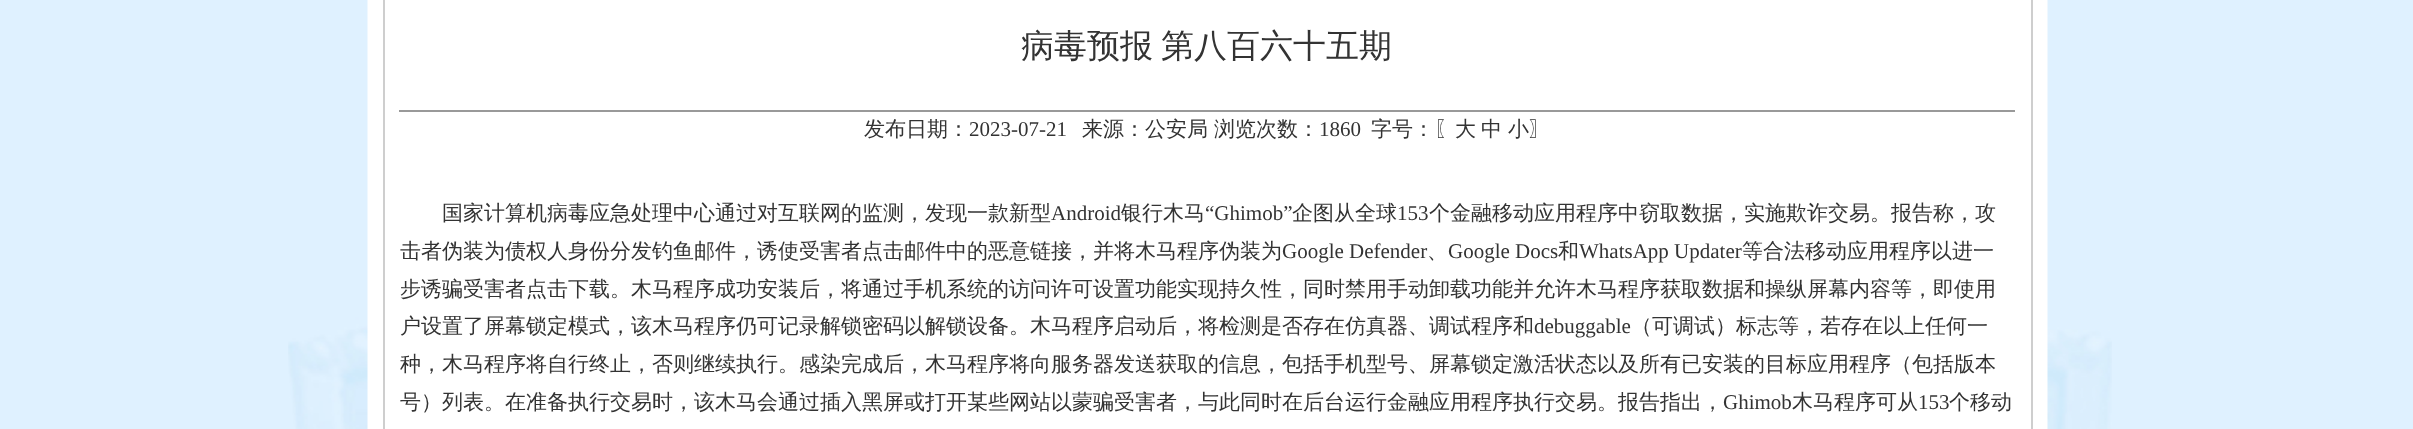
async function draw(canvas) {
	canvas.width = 2413;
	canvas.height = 429;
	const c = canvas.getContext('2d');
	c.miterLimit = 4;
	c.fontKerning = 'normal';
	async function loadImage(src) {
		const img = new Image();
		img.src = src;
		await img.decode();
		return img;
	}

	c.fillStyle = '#dff1ff';
	c.fillRect(0, 0, 2413, 429);
	c.drawImage(await loadImage('img1.png'), 288, 0, 1824, 429);
	c.strokeStyle = '#cecece';
	c.lineWidth = 2;
	c.strokeRect(384, -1, 1648, 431);
	c.fillStyle = '#999';
	c.fillRect(399, 110, 1616, 2);
	c.font = '500 33px WenQuanYi Zen Hei';
	c.fillStyle = '#333';
	c.fillText('病毒预报', 1021, 57);
	c.fillText('第八百六十五期', 1161, 57);
	c.font = '500 21px WenQuanYi Zen Hei';
	c.fillText('发布日期：', 864, 136);
	c.font = '21px Liberation Serif';
	c.fillText('2023-07-21', 969, 136);
	c.font = '500 21px WenQuanYi Zen Hei';
	c.fillText('来源：公安局', 1082, 136);
	c.fillText('浏览次数：', 1214, 136);
	c.font = '21px Liberation Serif';
	c.fillText('1860', 1319, 136);
	c.font = '500 21px WenQuanYi Zen Hei';
	for (const [text, x, y] of [
		['字号：〖大', 1371, 136],
		['中', 1481, 136],
		['小〗', 1508, 136],
		['国家计算机病毒应急处理中心通过对互联网的监测，发现一款新型', 442, 220],
	]) {
		c.fillText(text, x, y);
	}
	c.font = '21px Liberation Serif';
	c.fillText('Android', 1051, 220);
	c.font = '500 21px WenQuanYi Zen Hei';
	c.fillText('银行木马', 1121, 220);
	c.font = '21px Liberation Serif';
	c.fillText('“Ghimob”', 1205, 220);
	c.font = '500 21px WenQuanYi Zen Hei';
	c.fillText('企图从全球', 1292, 220);
	c.font = '21px Liberation Serif';
	c.fillText('153', 1397, 220);
	c.font = '500 21px WenQuanYi Zen Hei';
	c.fillText('个金融移动应用程序中窃取数据，实施欺诈交易。报告称，攻', 1429, 220);
	c.fillText('击者伪装为债权人身份分发钓鱼邮件，诱使受害者点击邮件中的恶意链接，并将木马程序伪装为', 400, 258);
	c.font = '21px Liberation Serif';
	c.fillText('Google Defender', 1282, 258);
	c.font = '500 21px WenQuanYi Zen Hei';
	c.fillText('、', 1427, 258);
	c.font = '21px Liberation Serif';
	c.fillText('Google Docs', 1448, 258);
	c.font = '500 21px WenQuanYi Zen Hei';
	c.fillText('和', 1558, 258);
	c.font = '21px Liberation Serif';
	c.fillText('WhatsApp Updater', 1579, 258);
	c.font = '500 21px WenQuanYi Zen Hei';
	for (const [text, x, y] of [
		['等合法移动应用程序以进一', 1742, 258],
		['步诱骗受害者点击下载。木马程序成功安装后，将通过手机系统的访问许可设置功能实现持久性，同时禁用手动卸载功能并允许木马程序获取数据和操纵屏幕内容等，即使用', 400, 296],
		['户设置了屏幕锁定模式，该木马程序仍可记录解锁密码以解锁设备。木马程序启动后，将检测是否存在仿真器、调试程序和', 400, 333],
	]) {
		c.fillText(text, x, y);
	}
	c.font = '21px Liberation Serif';
	c.fillText('debuggable', 1534, 333);
	c.font = '500 21px WenQuanYi Zen Hei';
	for (const [text, x, y] of [
		['（可调试）标志等，若存在以上任何一', 1631, 333],
		['种，木马程序将自行终止，否则继续执行。感染完成后，木马程序将向服务器发送获取的信息，包括手机型号、屏幕锁定激活状态以及所有已安装的目标应用程序（包括版本', 400, 371],
		['号）列表。在准备执行交易时，该木马会通过插入黑屏或打开某些网站以蒙骗受害者，与此同时在后台运行金融应用程序执行交易。报告指出，', 400, 409],
	]) {
		c.fillText(text, x, y);
	}
	c.font = '21px Liberation Serif';
	c.fillText('Ghimob', 1723, 409);
	c.font = '500 21px WenQuanYi Zen Hei';
	c.fillText('木马程序可从', 1792, 409);
	c.font = '21px Liberation Serif';
	c.fillText('153', 1918, 409);
	c.font = '500 21px WenQuanYi Zen Hei';
	c.fillText('个移动', 1949, 409);
}

draw(document.querySelector('canvas'));
